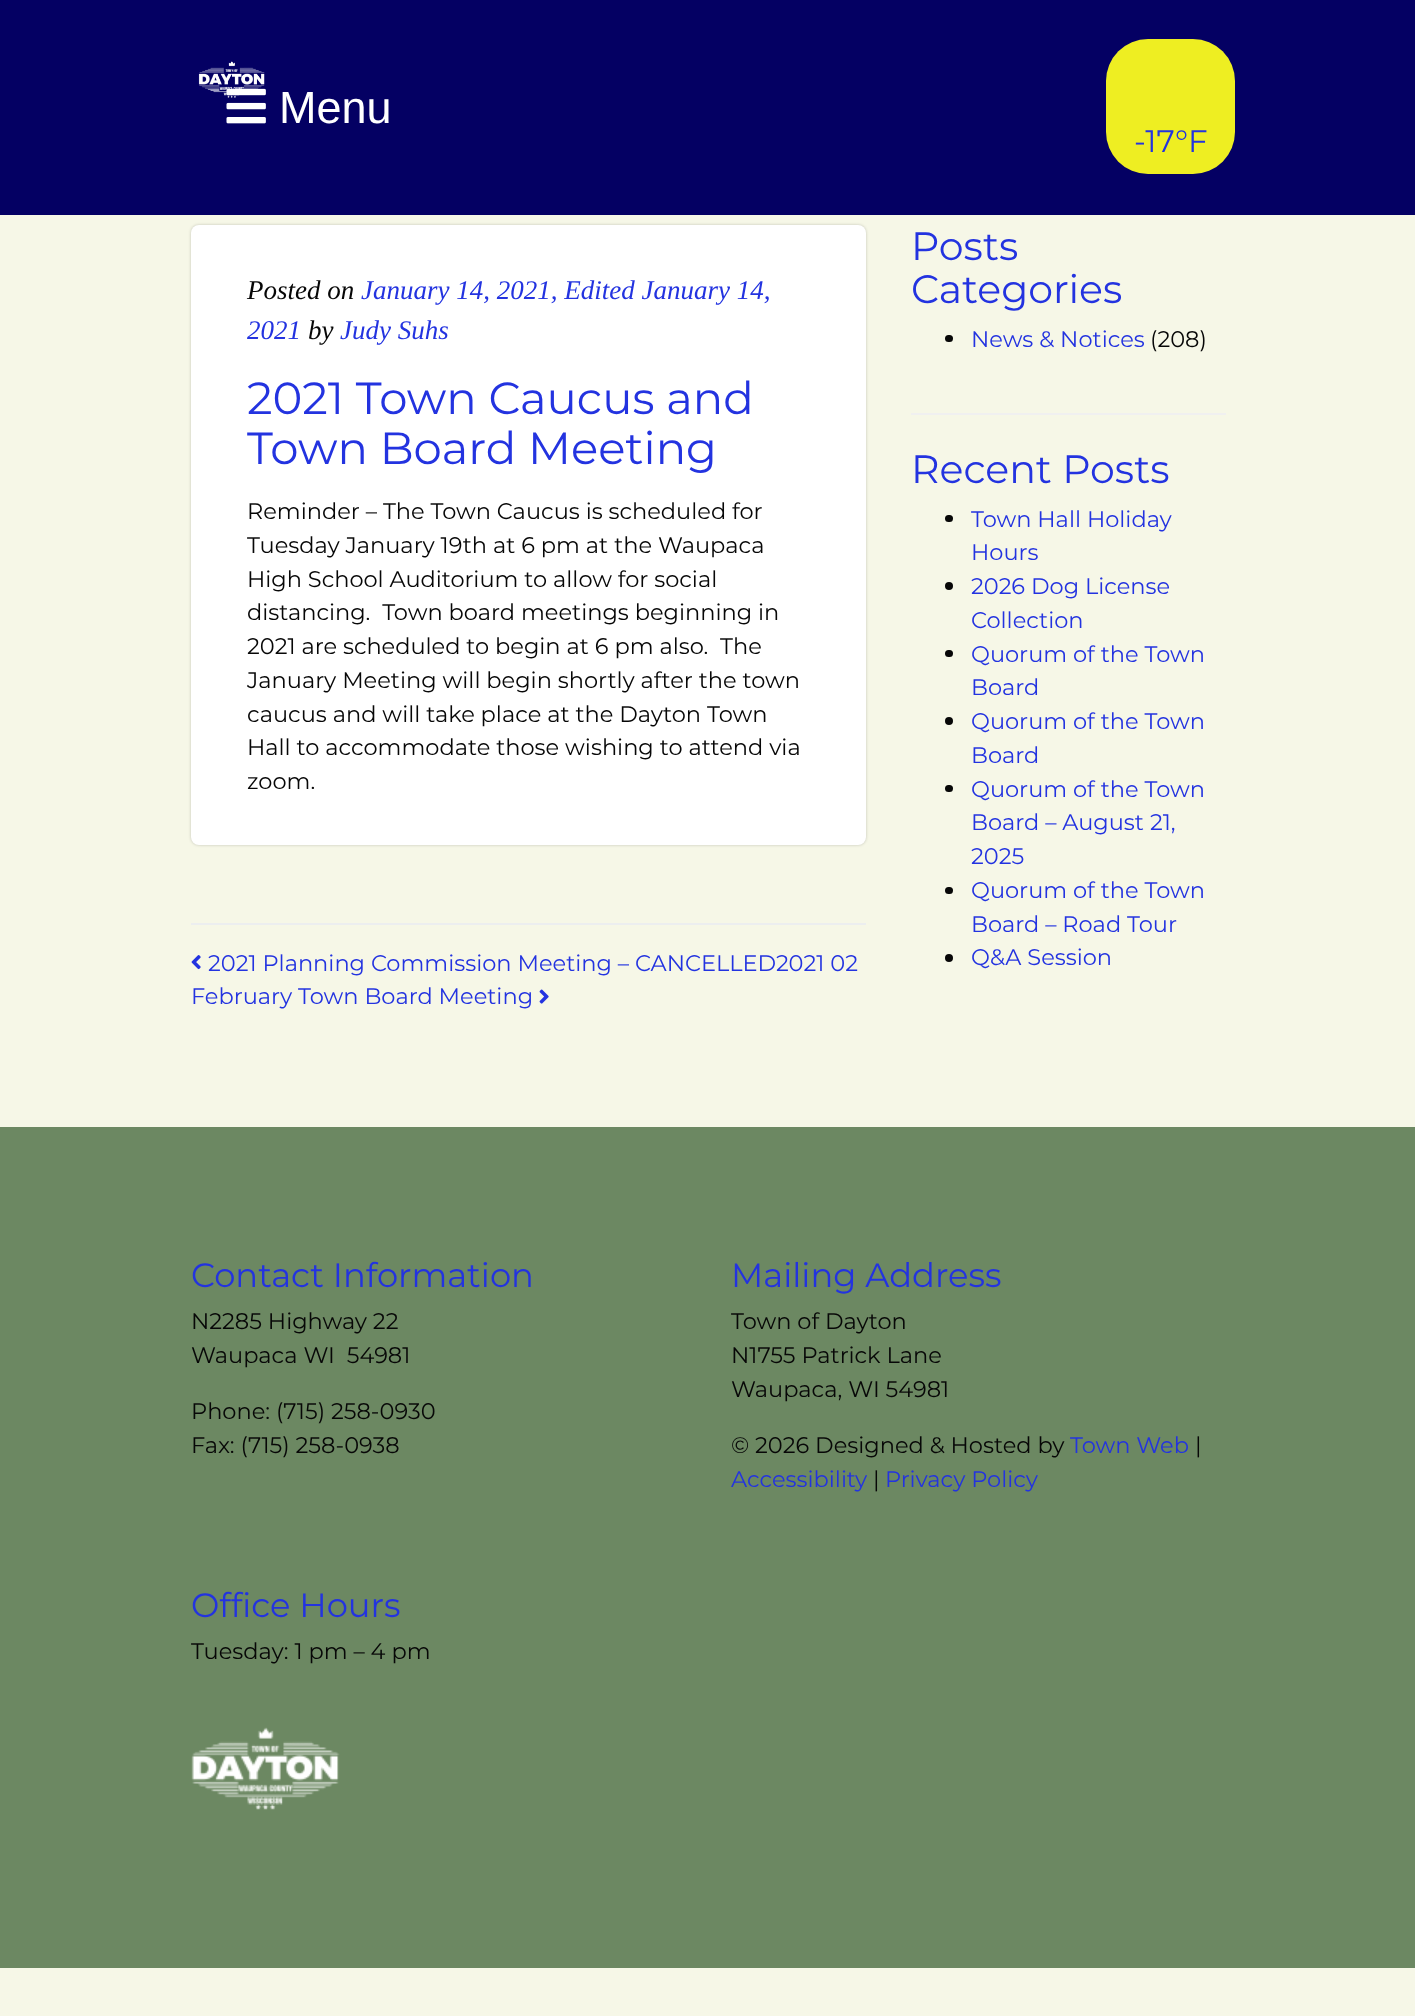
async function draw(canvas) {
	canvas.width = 1415;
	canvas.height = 2016;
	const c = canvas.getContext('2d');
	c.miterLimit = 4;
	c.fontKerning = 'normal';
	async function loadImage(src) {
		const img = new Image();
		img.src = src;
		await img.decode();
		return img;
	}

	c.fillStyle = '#f6f7e7';
	c.fillRect(0, 0, 1415, 2016);
	c.fillStyle = '#040063';
	c.fillRect(0, 0, 1415, 215);
	c.drawImage(await loadImage('img2.png'), 226, 88, 40, 36);
	c.drawImage(await loadImage('img1.png'), 198, 61, 67, 37);
	c.font = '45px Liberation Sans';
	c.fillStyle = '#fff';
	c.fillText('Menu', 279, 123);
	c.fillStyle = '#ee2';
	c.beginPath();
	c.roundRect(1106, 39, 129, 135, 42);
	c.fill();
	c.font = '31px Montserrat';
	c.fillStyle = '#2333e0';
	c.fillText('-17°F', 1134, 152);
	c.fillStyle = '#00000033';
	c.filter = 'blur(1.5px)';
	c.beginPath();
	c.roundRect(191, 225, 675, 620, 8);
	c.fill();
	c.filter = 'none';
	c.fillStyle = '#fff';
	c.beginPath();
	c.roundRect(191, 225, 675, 620, 8);
	c.fill();
	c.font = 'italic 27px Liberation Serif';
	c.fillStyle = '#070707';
	c.fillText('Posted on', 247, 299);
	c.fillStyle = '#2333e0';
	c.fillText('January 14, 2021, Edited January 14,', 361, 299);
	c.fillText('2021', 247, 339);
	c.fillStyle = '#070707';
	c.fillText('by', 308, 339);
	c.fillStyle = '#2333e0';
	c.fillText('Judy Suhs', 340, 339);
	c.font = '45px Montserrat';
	c.fillText('2021 Town Caucus and', 247, 414);
	c.fillText('Town Board Meeting', 247, 464);
	c.font = '22.5px Montserrat';
	c.fillStyle = '#070707';
	for (const [text, x, y] of [
		['Reminder – The Town Caucus is scheduled for', 247, 519],
		['Tuesday January 19th at 6 pm at the Waupaca', 247, 553],
		['High School Auditorium to allow for social', 247, 587],
		['distancing.  Town board meetings beginning in', 247, 620],
		['2021 are scheduled to begin at 6 pm also.  The', 247, 654],
		['January Meeting will begin shortly after the town', 247, 688],
		['caucus and will take place at the Dayton Town', 247, 722],
		['Hall to accommodate those wishing to attend via', 247, 755],
		['zoom.', 247, 789],
	]) {
		c.fillText(text, x, y);
	}
	c.fillStyle = '#eceeef';
	c.fillRect(191, 923, 675, 2);
	c.drawImage(await loadImage('img3.png'), 191, 955, 10, 15);
	c.fillStyle = '#2333e0';
	c.fillText('2021 Planning Commission Meeting – CANCELLED2021 02', 208, 971);
	c.fillText('February Town Board Meeting', 191, 1004);
	c.drawImage(await loadImage('img4.png'), 539, 989, 10, 15);
	c.fillStyle = '#f0f0f0';
	c.fillRect(911, 413, 315, 2);
	c.font = '39.5px Montserrat';
	c.fillStyle = '#2333e0';
	c.fillText('Posts', 911, 260);
	c.fillText('Categories', 911, 303);
	c.fillStyle = '#070707';
	c.beginPath();
	c.roundRect(945, 335, 8, 7, 3.5);
	c.fill();
	c.font = '22.5px Montserrat';
	c.fillStyle = '#2333e0';
	c.fillText('News & Notices', 971, 347);
	c.fillStyle = '#070707';
	c.fillText('(208)', 1150, 347);
	c.font = '39.5px Montserrat';
	c.fillStyle = '#2333e0';
	c.fillText('Recent Posts', 911, 483);
	c.fillStyle = '#070707';
	c.beginPath();
	c.roundRect(945, 515, 8, 7, 3.5);
	c.fill();
	c.font = '22.5px Montserrat';
	c.fillStyle = '#2333e0';
	c.fillText('Town Hall Holiday', 971, 527);
	c.fillText('Hours', 971, 560);
	c.fillStyle = '#070707';
	c.beginPath();
	c.arc(949, 586, 4, 0, 2 * Math.PI);
	c.fill();
	c.fillStyle = '#2333e0';
	c.fillText('2026 Dog License', 971, 594);
	c.fillText('Collection', 971, 628);
	c.fillStyle = '#070707';
	c.beginPath();
	c.roundRect(945, 650, 8, 7, 3.5);
	c.fill();
	c.fillStyle = '#2333e0';
	c.fillText('Quorum of the Town', 971, 662);
	c.fillText('Board', 971, 695);
	c.fillStyle = '#070707';
	c.beginPath();
	c.arc(949, 721, 4, 0, 2 * Math.PI);
	c.fill();
	c.fillStyle = '#2333e0';
	c.fillText('Quorum of the Town', 971, 729);
	c.fillText('Board', 971, 763);
	c.fillStyle = '#070707';
	c.beginPath();
	c.roundRect(945, 785, 8, 7, 3.5);
	c.fill();
	c.fillStyle = '#2333e0';
	for (const [text, x, y] of [
		['Quorum of the Town', 971, 797],
		['Board – August 21,', 971, 830],
		['2025', 971, 864],
	]) {
		c.fillText(text, x, y);
	}
	c.fillStyle = '#070707';
	c.beginPath();
	c.roundRect(945, 887, 8, 7, 3.5);
	c.fill();
	c.fillStyle = '#2333e0';
	c.fillText('Quorum of the Town', 971, 898);
	c.fillText('Board – Road Tour', 971, 932);
	c.fillStyle = '#070707';
	c.beginPath();
	c.arc(949, 958, 4, 0, 2 * Math.PI);
	c.fill();
	c.fillStyle = '#2333e0';
	c.fillText('Q&A Session', 971, 965);
	c.fillStyle = '#6c8862';
	c.fillRect(0, 1127, 1415, 841);
	c.font = '33.75px Montserrat';
	c.fillStyle = '#2333e0';
	c.fillText('Contact Information', 191, 1287);
	c.font = '22.5px Montserrat';
	c.fillStyle = '#070707';
	for (const [text, x, y] of [
		['N2285 Highway 22', 191, 1329],
		['Waupaca WI  54981', 191, 1363],
		['Phone: (715) 258-0930', 191, 1419],
		['Fax: (715) 258-0938', 191, 1453],
	]) {
		c.fillText(text, x, y);
	}
	c.font = '33.75px Montserrat';
	c.fillStyle = '#2333e0';
	c.fillText('Mailing Address', 731, 1287);
	c.font = '22.5px Montserrat';
	c.fillStyle = '#070707';
	for (const [text, x, y] of [
		['Town of Dayton', 731, 1329],
		['N1755 Patrick Lane', 731, 1363],
		['Waupaca, WI 54981', 731, 1397],
		['© 2026 Designed & Hosted by', 731, 1453],
	]) {
		c.fillText(text, x, y);
	}
	c.fillStyle = '#2333e0';
	c.fillText('Town Web', 1070, 1453);
	c.fillStyle = '#070707';
	c.fillText('|', 1195, 1453);
	c.fillStyle = '#2333e0';
	c.fillText('Accessibility', 731, 1487);
	c.fillStyle = '#070707';
	c.fillText('|', 873, 1487);
	c.fillStyle = '#2333e0';
	c.fillText('Privacy Policy', 885, 1487);
	c.font = '33.75px Montserrat';
	c.fillText('Office Hours', 191, 1617);
	c.font = '22.5px Montserrat';
	c.fillStyle = '#070707';
	c.fillText('Tuesday: 1 pm – 4 pm', 191, 1659);
	c.drawImage(await loadImage('img5.png'), 191, 1727, 149, 83);
}

draw(document.querySelector('canvas'));
